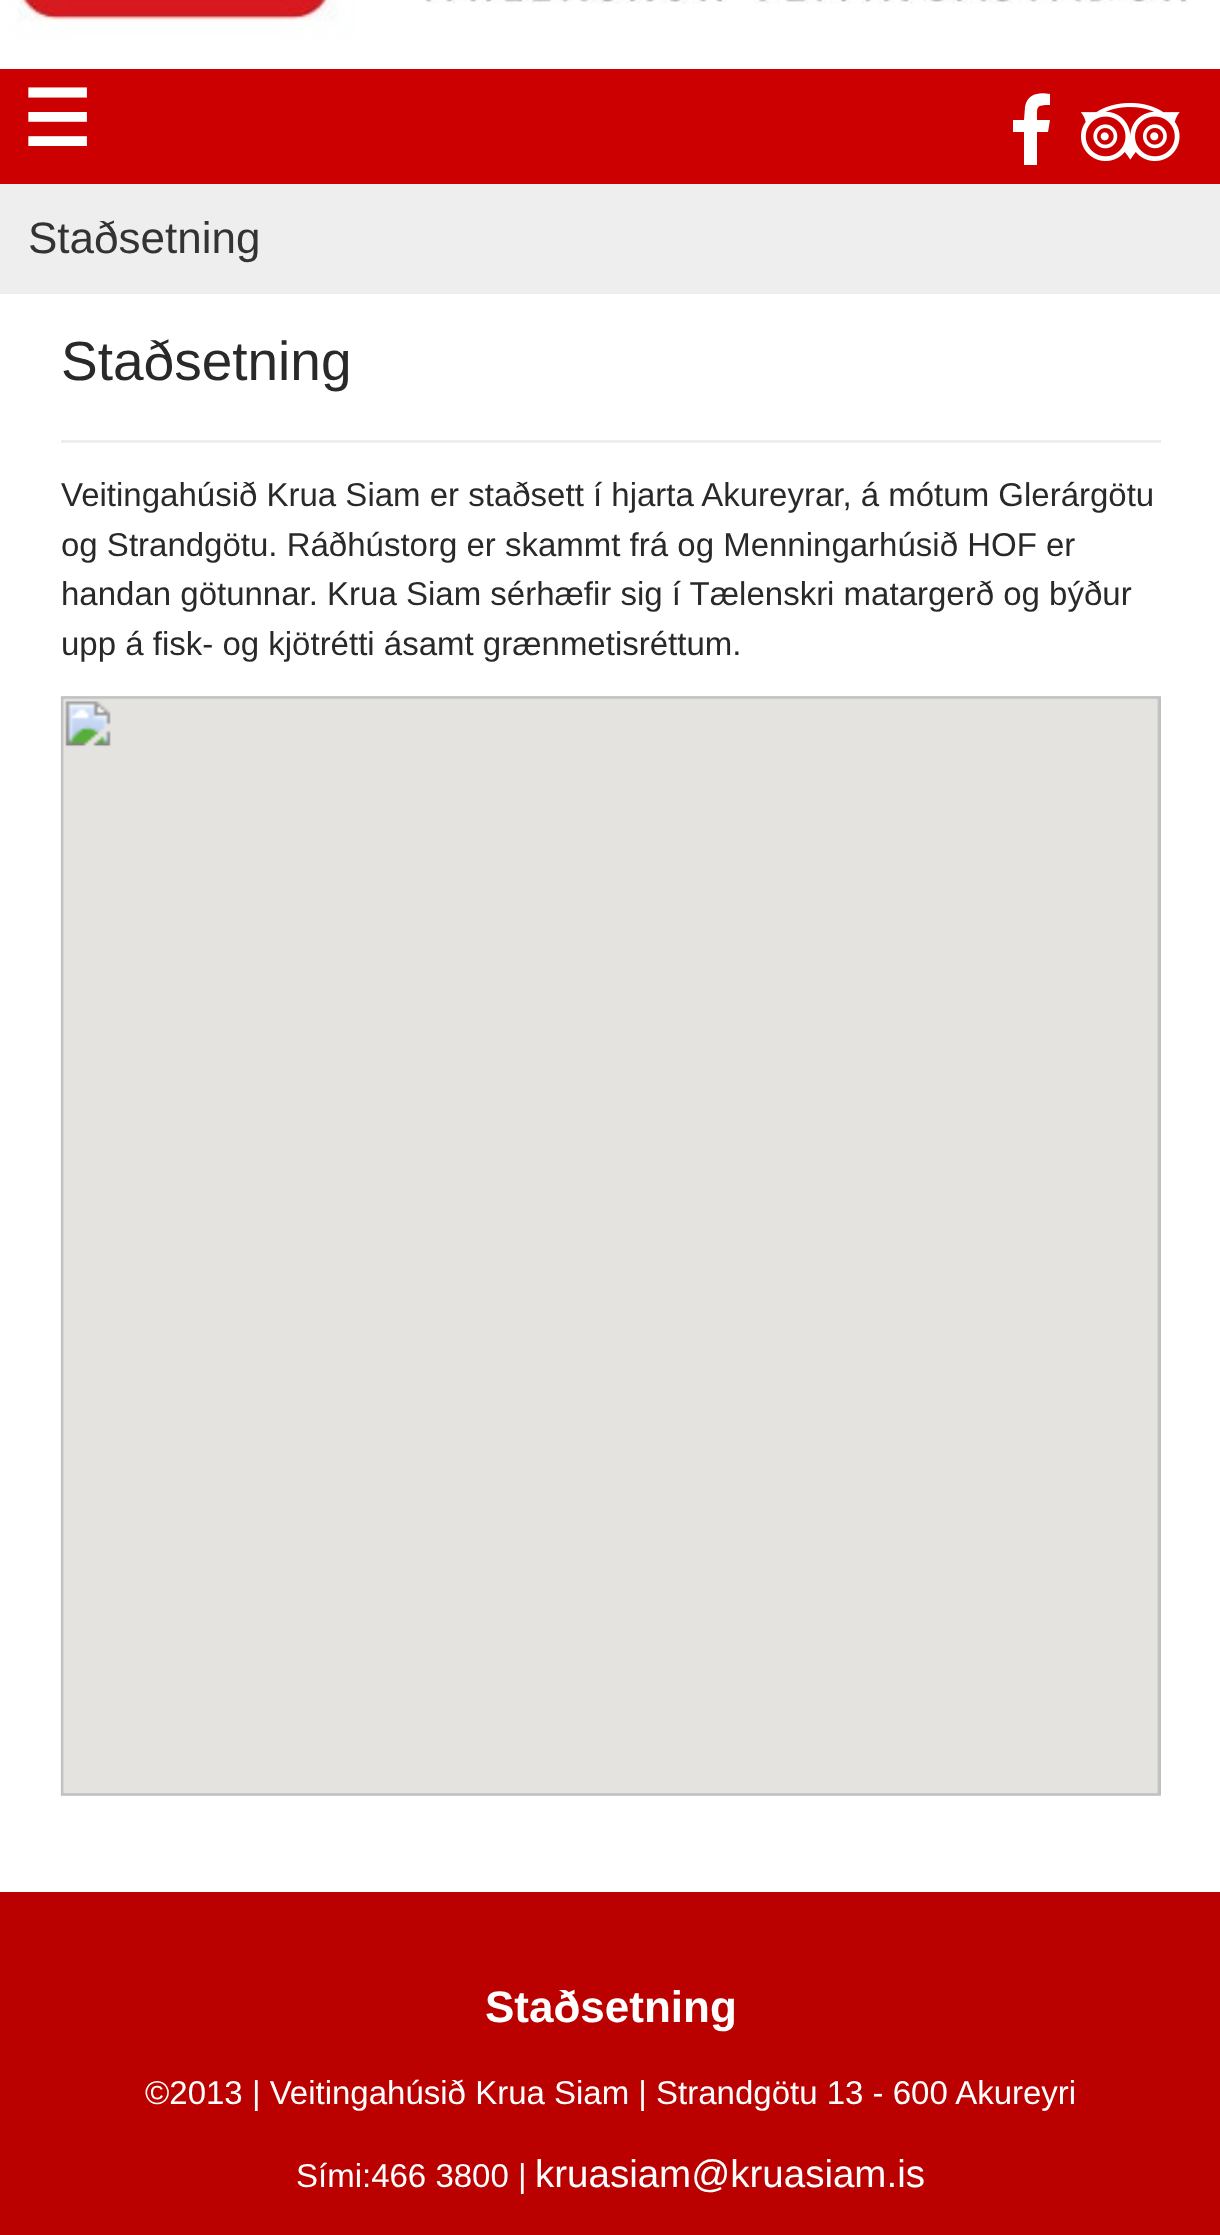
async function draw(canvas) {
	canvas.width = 1220;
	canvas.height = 2235;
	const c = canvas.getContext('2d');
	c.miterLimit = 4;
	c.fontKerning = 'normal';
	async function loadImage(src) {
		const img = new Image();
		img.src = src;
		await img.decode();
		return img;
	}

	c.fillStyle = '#fff';
	c.fillRect(0, 0, 1220, 2235);
	c.drawImage(await loadImage('img1.png'), 8, 0, 1180, 39);
	c.fillStyle = '#c00';
	c.fillRect(0, 69, 1220, 115);
	c.fillStyle = '#fff';
	c.beginPath();
	c.moveTo(1050, 94);
	c.lineTo(1050, 105);
	c.bezierCurveTo(1036, 105, 1037, 106, 1037, 120);
	c.lineTo(1050, 120);
	c.lineTo(1048, 132);
	c.lineTo(1037, 132);
	c.lineTo(1037, 165);
	c.lineTo(1024, 165);
	c.lineTo(1024, 132);
	c.lineTo(1013, 132);
	c.lineTo(1013, 120);
	c.lineTo(1024, 120);
	c.lineTo(1025, 107);
	c.bezierCurveTo(1027, 93, 1040, 92, 1050, 94);
	c.closePath();
	c.fill();
	c.drawImage(await loadImage('img2.png'), 1080, 102, 100, 60);
	c.font = 'bold 77px DejaVu Sans';
	c.fillText('☰', 22, 146);
	c.fillStyle = '#eee';
	c.fillRect(0, 184, 1220, 110);
	c.font = '44px Liberation Sans';
	c.fillStyle = '#333';
	c.fillText('Staðsetning', 28, 253);
	c.fillStyle = '#eee';
	c.fillRect(61, 440, 1100, 3);
	c.font = '55px Liberation Sans';
	c.fillStyle = '#292929';
	c.fillText('Staðsetning', 61, 380);
	c.font = '33px Liberation Sans';
	for (const [text, x, y] of [
		['Veitingahúsið Krua Siam er staðsett í hjarta Akureyrar, á mótum Glerárgötu', 61, 506],
		['og Strandgötu. Ráðhústorg er skammt frá og Menningarhúsið HOF er', 61, 556],
		['handan götunnar. Krua Siam sérhæfir sig í Tælenskri matargerð og býður', 61, 605],
		['upp á fisk- og kjötrétti ásamt grænmetisréttum.', 61, 655],
	]) {
		c.fillText(text, x, y);
	}
	c.drawImage(await loadImage('img3.png'), 60, 696, 1101, 1100);
	c.fillStyle = '#b00';
	c.fillRect(0, 1892, 1220, 343);
	c.font = 'bold 44px Liberation Sans';
	c.fillStyle = '#fff';
	c.fillText('Staðsetning', 485, 2022);
	c.font = '33px Liberation Sans';
	c.fillText('©2013 | Veitingahúsið Krua Siam | Strandgötu 13 - 600 Akureyri', 145, 2104);
	c.fillText('Sími:466 3800 |', 296, 2187);
	c.font = '38.5px Liberation Sans';
	c.fillText('kruasiam@kruasiam.is', 535, 2187);
}

draw(document.querySelector('canvas'));
